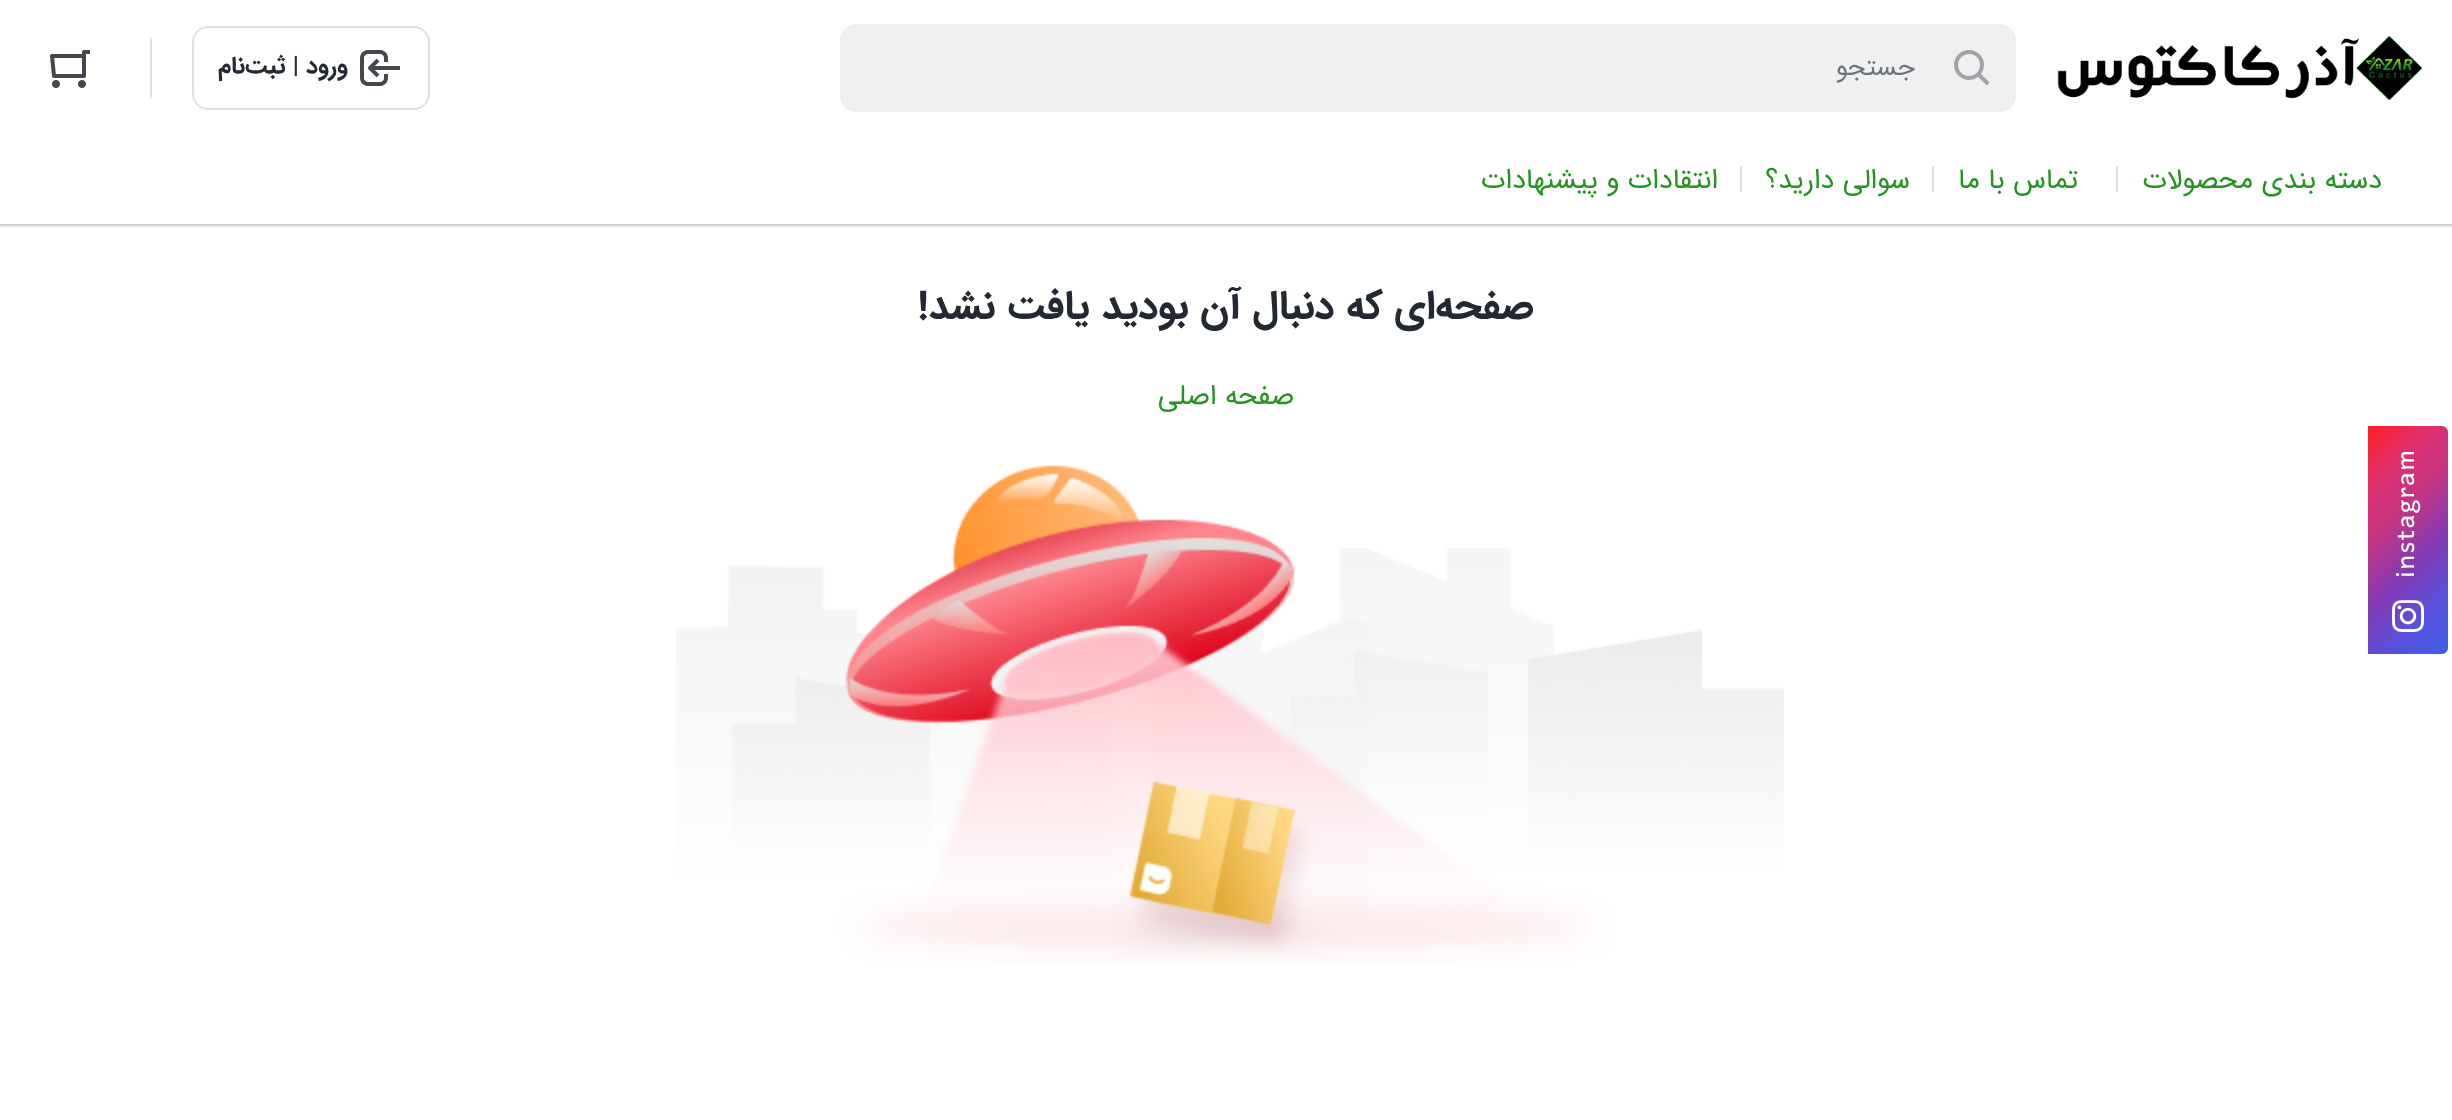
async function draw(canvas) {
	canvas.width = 2452;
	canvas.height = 1120;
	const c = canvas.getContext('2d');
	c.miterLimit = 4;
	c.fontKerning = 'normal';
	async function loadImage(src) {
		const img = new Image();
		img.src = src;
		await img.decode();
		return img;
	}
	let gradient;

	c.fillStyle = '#fff';
	c.fillRect(0, 0, 2452, 1120);
	c.drawImage(await loadImage('img1.png'), 2057, 36, 365, 64);
	c.fillStyle = '#f0f0f1';
	c.beginPath();
	c.roundRect(841, 25, 1174, 86, 15);
	c.fill();
	c.strokeStyle = '#f0f0f1';
	c.lineWidth = 2;
	c.stroke();
	c.drawImage(await loadImage('img2.png'), 1954, 50, 36, 36);
	c.direction = 'rtl';
	c.font = '26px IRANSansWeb';
	c.fillStyle = '#6c757d';
	c.fillText('جستجو', 1915, 75);
	c.beginPath();
	c.roundRect(193, 27, 236, 82, 15);
	c.strokeStyle = '#e0e0e2';
	c.stroke();
	c.drawImage(await loadImage('img3.png'), 360, 50, 40, 36);
	c.font = 'bold 24px IRANSansWeb';
	c.fillStyle = '#232933';
	c.fillText('ورود | ثبت‌نام', 348, 73);
	c.fillStyle = '#e0e0e2';
	c.fillRect(150, 38, 2, 60);
	c.drawImage(await loadImage('img4.png'), 50, 50, 40, 38);
	c.fillStyle = '#f2f2f2';
	c.fillRect(0, 226, 2452, 2);
	c.fillStyle = '#d0d0d0';
	c.fillRect(0, 224, 2452, 2);
	c.font = '28px IRANSansWeb';
	c.fillStyle = '#24931f';
	c.fillText('دسته بندی محصولات', 2382, 188);
	c.fillStyle = '#e0e0e2';
	c.fillRect(2116, 166, 2, 26);
	c.fillStyle = '#24931f';
	c.fillText('تماس با ما', 2078, 188);
	c.fillStyle = '#e0e0e2';
	c.fillRect(1932, 166, 2, 26);
	c.fillStyle = '#24931f';
	c.fillText('سوالی دارید؟', 1910, 188);
	c.fillStyle = '#e0e0e2';
	c.fillRect(1740, 166, 2, 26);
	c.fillStyle = '#24931f';
	c.fillText('انتقادات و پیشنهادات', 1718, 188);
	c.font = 'bold 40px IRANSansWeb';
	c.fillStyle = '#232933';
	c.fillText('صفحه‌ای که دنبال آن بودید یافت نشد!', 1534, 318);
	c.font = '28px IRANSansWeb';
	c.fillStyle = '#24931f';
	c.fillText('صفحه اصلی', 1294, 404);
	c.drawImage(await loadImage('img5.png'), 676, 465, 1108, 499);
	gradient = c.createLinearGradient(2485, 617, 2331, 463);
	gradient.addColorStop(0, '#405de6');
	gradient.addColorStop(0.2, '#5851db');
	gradient.addColorStop(0.4, '#833ab4');
	gradient.addColorStop(0.6, '#c13584');
	gradient.addColorStop(0.8, '#e1306c');
	gradient.addColorStop(1, '#fd1d1d');
	c.fillStyle = gradient;
	c.beginPath();
	c.moveTo(2368, 654);
	c.lineTo(2368, 426);
	c.lineTo(2442, 426);
	c.bezierCurveTo(2445, 426, 2448, 429, 2448, 432);
	c.lineTo(2448, 648);
	c.bezierCurveTo(2448, 651, 2445, 654, 2442, 654);
	c.closePath();
	c.fill();
	c.letterSpacing = '1.5px';
	c.direction = 'ltr';
	c.font = '33.5px Harmattan';
	c.fillStyle = '#fff';
	c.save();
	c.translate(2414, 578);
	c.rotate(-90 * Math.PI / 180);
	c.fillText('instagram', 0, 0);
	c.restore();
	c.drawImage(await loadImage('img6.png'), 2392, 600, 32, 32);
}

draw(document.querySelector('canvas'));
